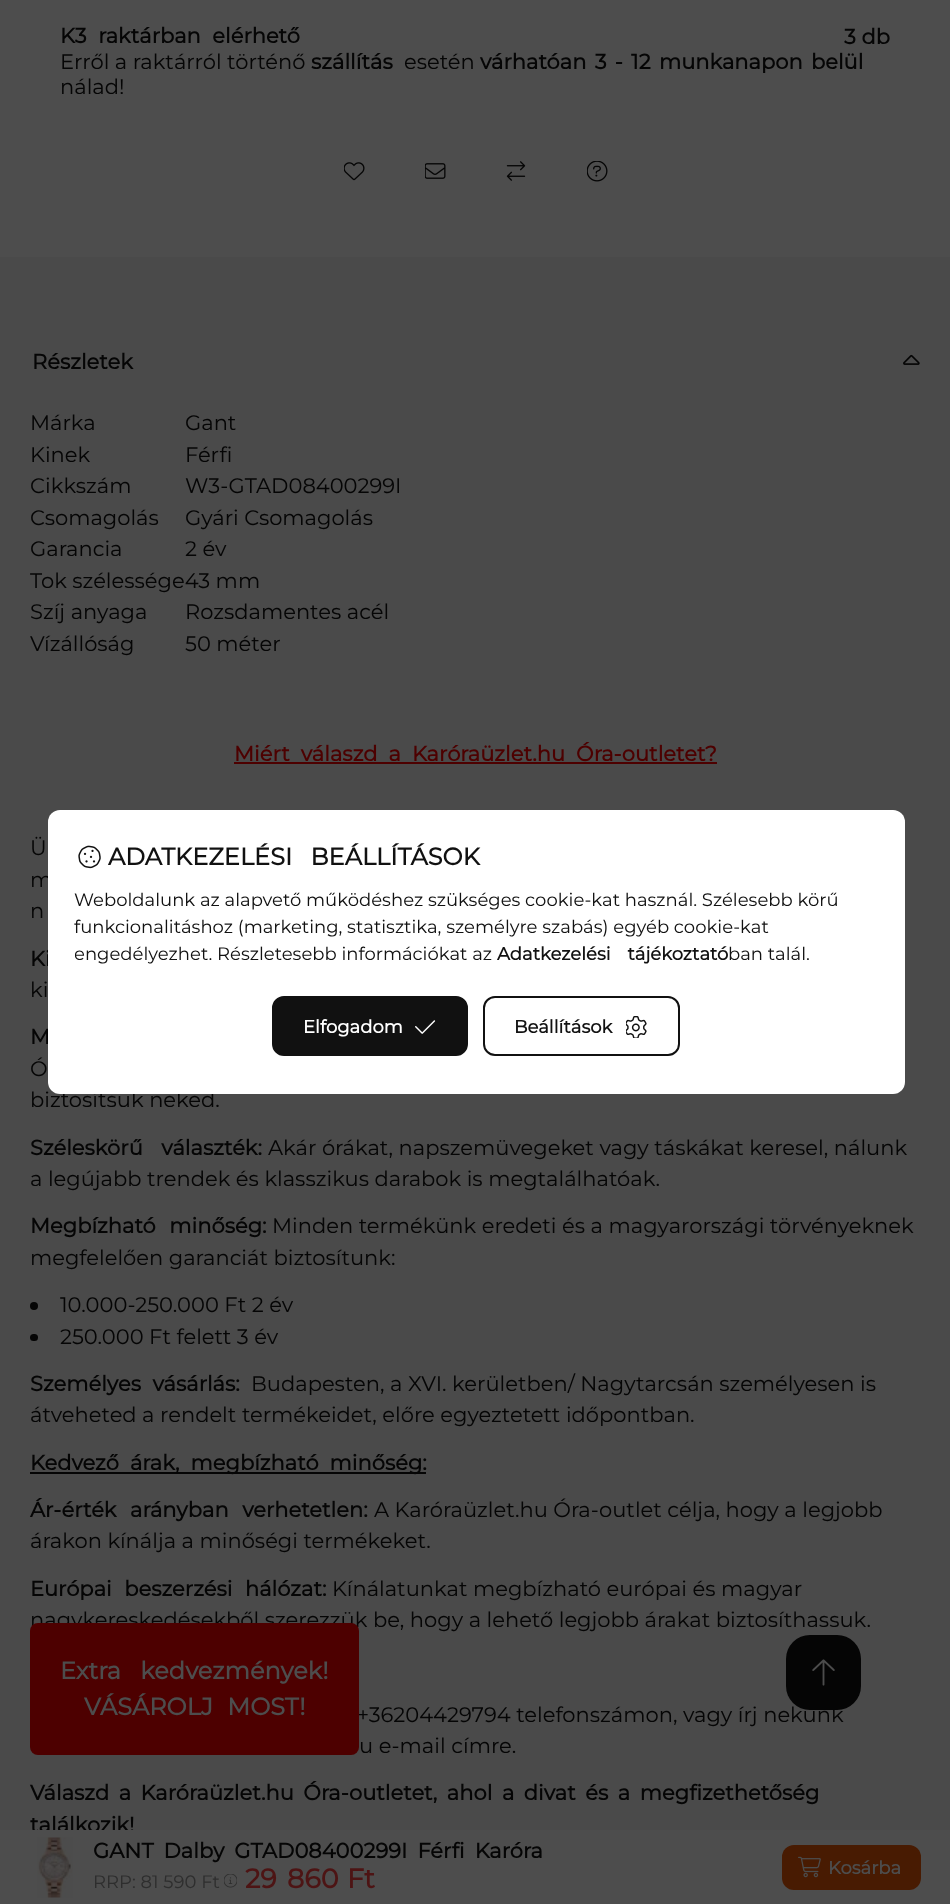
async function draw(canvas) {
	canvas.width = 950;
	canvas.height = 1904;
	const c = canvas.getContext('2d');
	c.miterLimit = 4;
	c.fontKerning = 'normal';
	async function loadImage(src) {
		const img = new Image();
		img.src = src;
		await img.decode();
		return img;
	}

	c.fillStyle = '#4a4a4a';
	c.fillRect(0, 0, 950, 1904);
	c.fillStyle = '#4d4d4d';
	c.fillRect(0, 0, 950, 257);
	c.wordSpacing = '6px';
	c.font = 'bold 21px Montserrat';
	c.fillStyle = '#050505';
	c.fillText('K3 raktárban elérhető', 60, 43);
	c.wordSpacing = '0px';
	c.fillText('3 db', 844, 44);
	c.font = '21px Montserrat';
	c.fillText('Erről a raktárról történő', 60, 69);
	c.font = 'bold 21px Montserrat';
	c.fillText('szállítás', 311, 69);
	c.font = '21px Montserrat';
	c.fillText('esetén', 404, 69);
	c.wordSpacing = '2.75px';
	c.font = 'bold 21px Montserrat';
	c.fillText('várhatóan 3 - 12 munkanapon belül', 480, 69);
	c.wordSpacing = '0px';
	c.font = '21px Montserrat';
	c.fillText('nálad!', 60, 94);
	c.drawImage(await loadImage('img1.png'), 344, 162, 21, 19);
	c.drawImage(await loadImage('img2.png'), 425, 163, 21, 16);
	c.drawImage(await loadImage('img3.png'), 506, 161, 20, 20);
	c.drawImage(await loadImage('img4.png'), 587, 161, 21, 21);
	c.font = 'bold 21px Montserrat';
	c.fillText('Részletek', 32, 369);
	c.drawImage(await loadImage('img5.png'), 903, 354, 17, 11);
	c.font = '21px Montserrat';
	for (const [text, x, y] of [
		['Márka', 30, 430],
		['Gant', 185, 430],
		['Kinek', 30, 462],
		['Férfi', 185, 462],
		['Cikkszám', 30, 493],
		['W3-GTAD08400299I', 185, 493],
		['Csomagolás', 30, 525],
		['Gyári Csomagolás', 185, 525],
		['Garancia', 30, 556],
		['2 év', 185, 556],
		['Tok szélessége43 mm', 30, 588],
		['Szíj anyaga', 30, 619],
		['Rozsdamentes acél', 185, 619],
		['Vízállóság', 30, 651],
		['50 méter', 185, 651],
	]) {
		c.fillText(text, x, y);
	}
	c.wordSpacing = '5.5px';
	c.font = 'bold 21px Montserrat';
	c.fillStyle = '#4d0000';
	c.fillText('Miért válaszd a Karóraüzlet.hu Óra-outletet?', 234, 761);
	c.fillRect(234, 762, 483, 2);
	c.wordSpacing = '0px';
	c.font = '21px Montserrat';
	c.fillStyle = '#050505';
	for (const [text, x, y] of [
		['Ü', 30, 855],
		['m', 30, 887],
		['n', 30, 918],
	]) {
		c.fillText(text, x, y);
	}
	c.wordSpacing = '6px';
	c.font = 'bold 21px Montserrat';
	c.fillText('Ki', 30, 966);
	c.wordSpacing = '0px';
	c.font = '21px Montserrat';
	c.fillText('ki', 30, 997);
	c.wordSpacing = '5px';
	c.font = 'bold 21px Montserrat';
	c.fillText('M', 30, 1044);
	c.wordSpacing = '0px';
	c.font = '21px Montserrat';
	c.fillText('Ó', 30, 1076);
	c.fillText('biztosítsuk neked.', 30, 1107);
	c.wordSpacing = '13px';
	c.font = 'bold 21px Montserrat';
	c.fillText('Széleskörű választék:', 30, 1155);
	c.wordSpacing = '0px';
	c.font = '21px Montserrat';
	c.fillText('Akár órákat, napszemüvegeket vagy táskákat keresel, nálunk', 268, 1155);
	c.fillText('a legújabb trendek és klasszikus darabok is megtalálhatóak.', 30, 1186);
	c.wordSpacing = '8px';
	c.font = 'bold 21px Montserrat';
	c.fillText('Megbízható minőség:', 30, 1233);
	c.wordSpacing = '0px';
	c.font = '21px Montserrat';
	c.fillText('Minden termékünk eredeti és a magyarországi törvényeknek', 272, 1233);
	c.fillText('megfelelően garanciát biztosítunk:', 30, 1265);
	c.beginPath();
	c.arc(34, 1306, 4, 0, 2 * Math.PI);
	c.fill();
	c.fillText('10.000-250.000 Ft 2 év', 60, 1312);
	c.beginPath();
	c.roundRect(30, 1334, 8, 7, 3.5);
	c.fill();
	c.fillText('250.000 Ft felett 3 év', 60, 1344);
	c.wordSpacing = '6px';
	c.font = 'bold 21px Montserrat';
	c.fillText('Személyes vásárlás:', 30, 1391);
	c.wordSpacing = '0px';
	c.font = '21px Montserrat';
	c.fillText('Budapesten, a XVI. kerületben/ Nagytarcsán személyesen is', 251, 1391);
	c.fillText('átveheted a rendelt termékeidet, előre egyeztetett időpontban.', 30, 1422);
	c.fillRect(30, 1472, 396, 2);
	c.wordSpacing = '5.5px';
	c.font = 'bold 21px Montserrat';
	c.fillText('Kedvező árak, megbízható minőség:', 30, 1470);
	c.wordSpacing = '8px';
	c.fillText('Ár-érték arányban verhetetlen:', 30, 1517);
	c.wordSpacing = '0px';
	c.font = '21px Montserrat';
	c.fillText('A Karóraüzlet.hu Óra-outlet célja, hogy a legjobb', 374, 1517);
	c.fillText('árakon kínálja a minőségi termékeket.', 30, 1548);
	c.wordSpacing = '7px';
	c.font = 'bold 21px Montserrat';
	c.fillText('Európai beszerzési hálózat:', 30, 1596);
	c.wordSpacing = '0px';
	c.font = '21px Montserrat';
	for (const [text, x, y] of [
		['Kínálatunkat megbízható európai és magyar', 332, 1596],
		['nagykereskedésekből szerezzük be, hogy a lehető legjobb árakat biztosíthassuk.', 30, 1627],
		['+36204429794 telefonszámon, vagy írj nekünk', 357, 1722],
		['u e-mail címre.', 359, 1753],
	]) {
		c.fillText(text, x, y);
	}
	c.wordSpacing = '4px';
	c.font = 'bold 21px Montserrat';
	c.fillText('Válaszd a Karóraüzlet.hu Óra-outletet, ahol a divat és a megfizethetőség', 30, 1800);
	c.wordSpacing = '0px';
	c.fillText('találkozik!', 30, 1832);
	c.fillStyle = '#4d4d4d';
	c.fillRect(0, 1830, 950, 74);
	c.drawImage(await loadImage('img6.png'), 37, 1837, 36, 61);
	c.wordSpacing = '4.5px';
	c.fillStyle = '#050505';
	c.fillText('GANT Dalby GTAD08400299I Férfi Karóra', 93, 1858);
	c.wordSpacing = '0px';
	c.font = '18px Montserrat';
	c.fillStyle = '#2e2e2e';
	c.fillText('RRP: 81 590 Ft', 93, 1888);
	c.drawImage(await loadImage('img7.png'), 224, 1874, 13, 14);
	c.wordSpacing = '3px';
	c.font = 'bold 27px Montserrat';
	c.fillStyle = '#4d1414';
	c.fillText('29 860', 245, 1888);
	c.wordSpacing = '0px';
	c.fillText('Ft', 347, 1888);
	c.fillStyle = '#481b02';
	c.beginPath();
	c.roundRect(782, 1845, 139, 45, 12);
	c.fill();
	c.drawImage(await loadImage('img8.png'), 798, 1856, 23, 22);
	c.font = 'bold 18px Montserrat';
	c.fillStyle = '#4d4d4d';
	c.fillText('Kosárba', 828, 1874);
	c.fillStyle = '#fff';
	c.beginPath();
	c.roundRect(48, 810, 857, 284, 12);
	c.fill();
	c.drawImage(await loadImage('img9.png'), 78, 845, 23, 24);
	c.wordSpacing = '12px';
	c.font = 'bold 24px Montserrat';
	c.fillStyle = '#111';
	c.fillText('ADATKEZELÉSI BEÁLLÍTÁSOK', 108, 865);
	c.wordSpacing = '0px';
	c.font = '18px Montserrat';
	c.fillText('Weboldalunk az alapvető működéshez szükséges cookie-kat használ. Szélesebb körű', 74, 906);
	c.fillText('funkcionalitáshoz (marketing, statisztika, személyre szabás) egyéb cookie-kat', 74, 933);
	c.save();
	c.beginPath();
	c.rect(75, 885, 803, 179);
	c.clip();
	c.fillText('engedélyezhet. Részletesebb információkat az', 74, 960);
	c.restore();
	c.wordSpacing = '12px';
	c.font = 'bold 18px Montserrat';
	c.fillText('Adatkezelési tájékoztató', 497, 960);
	c.wordSpacing = '0px';
	c.font = '18px Montserrat';
	c.fillText('ban talál.', 728, 960);
	c.beginPath();
	c.roundRect(273, 997, 194, 58, 11);
	c.fill();
	c.strokeStyle = '#111';
	c.lineWidth = 2;
	c.stroke();
	c.font = 'bold 18px Montserrat';
	c.fillStyle = '#fff';
	c.fillText('Elfogadom', 303, 1033);
	c.drawImage(await loadImage('img10.png'), 415, 1020, 21, 14);
	c.beginPath();
	c.roundRect(484, 997, 195, 58, 11);
	c.stroke();
	c.fillStyle = '#111';
	c.fillText('Beállítások', 514, 1033);
	c.drawImage(await loadImage('img11.png'), 626, 1016, 21, 22);
	c.fillStyle = '#4d0000';
	c.beginPath();
	c.roundRect(30, 1623, 329, 132, 8);
	c.fill();
	c.wordSpacing = '13px';
	c.font = 'bold 24px Montserrat';
	c.fillStyle = '#4d4d4d';
	c.fillText('Extra kedvezmények!', 60, 1679);
	c.wordSpacing = '8px';
	c.fillText('VÁSÁROLJ MOST!', 84, 1715);
	c.fillStyle = '#050505';
	c.beginPath();
	c.roundRect(786, 1635, 75, 75, 24);
	c.fill();
	c.drawImage(await loadImage('img12.png'), 812, 1659, 23, 27);
}

draw(document.querySelector('canvas'));
